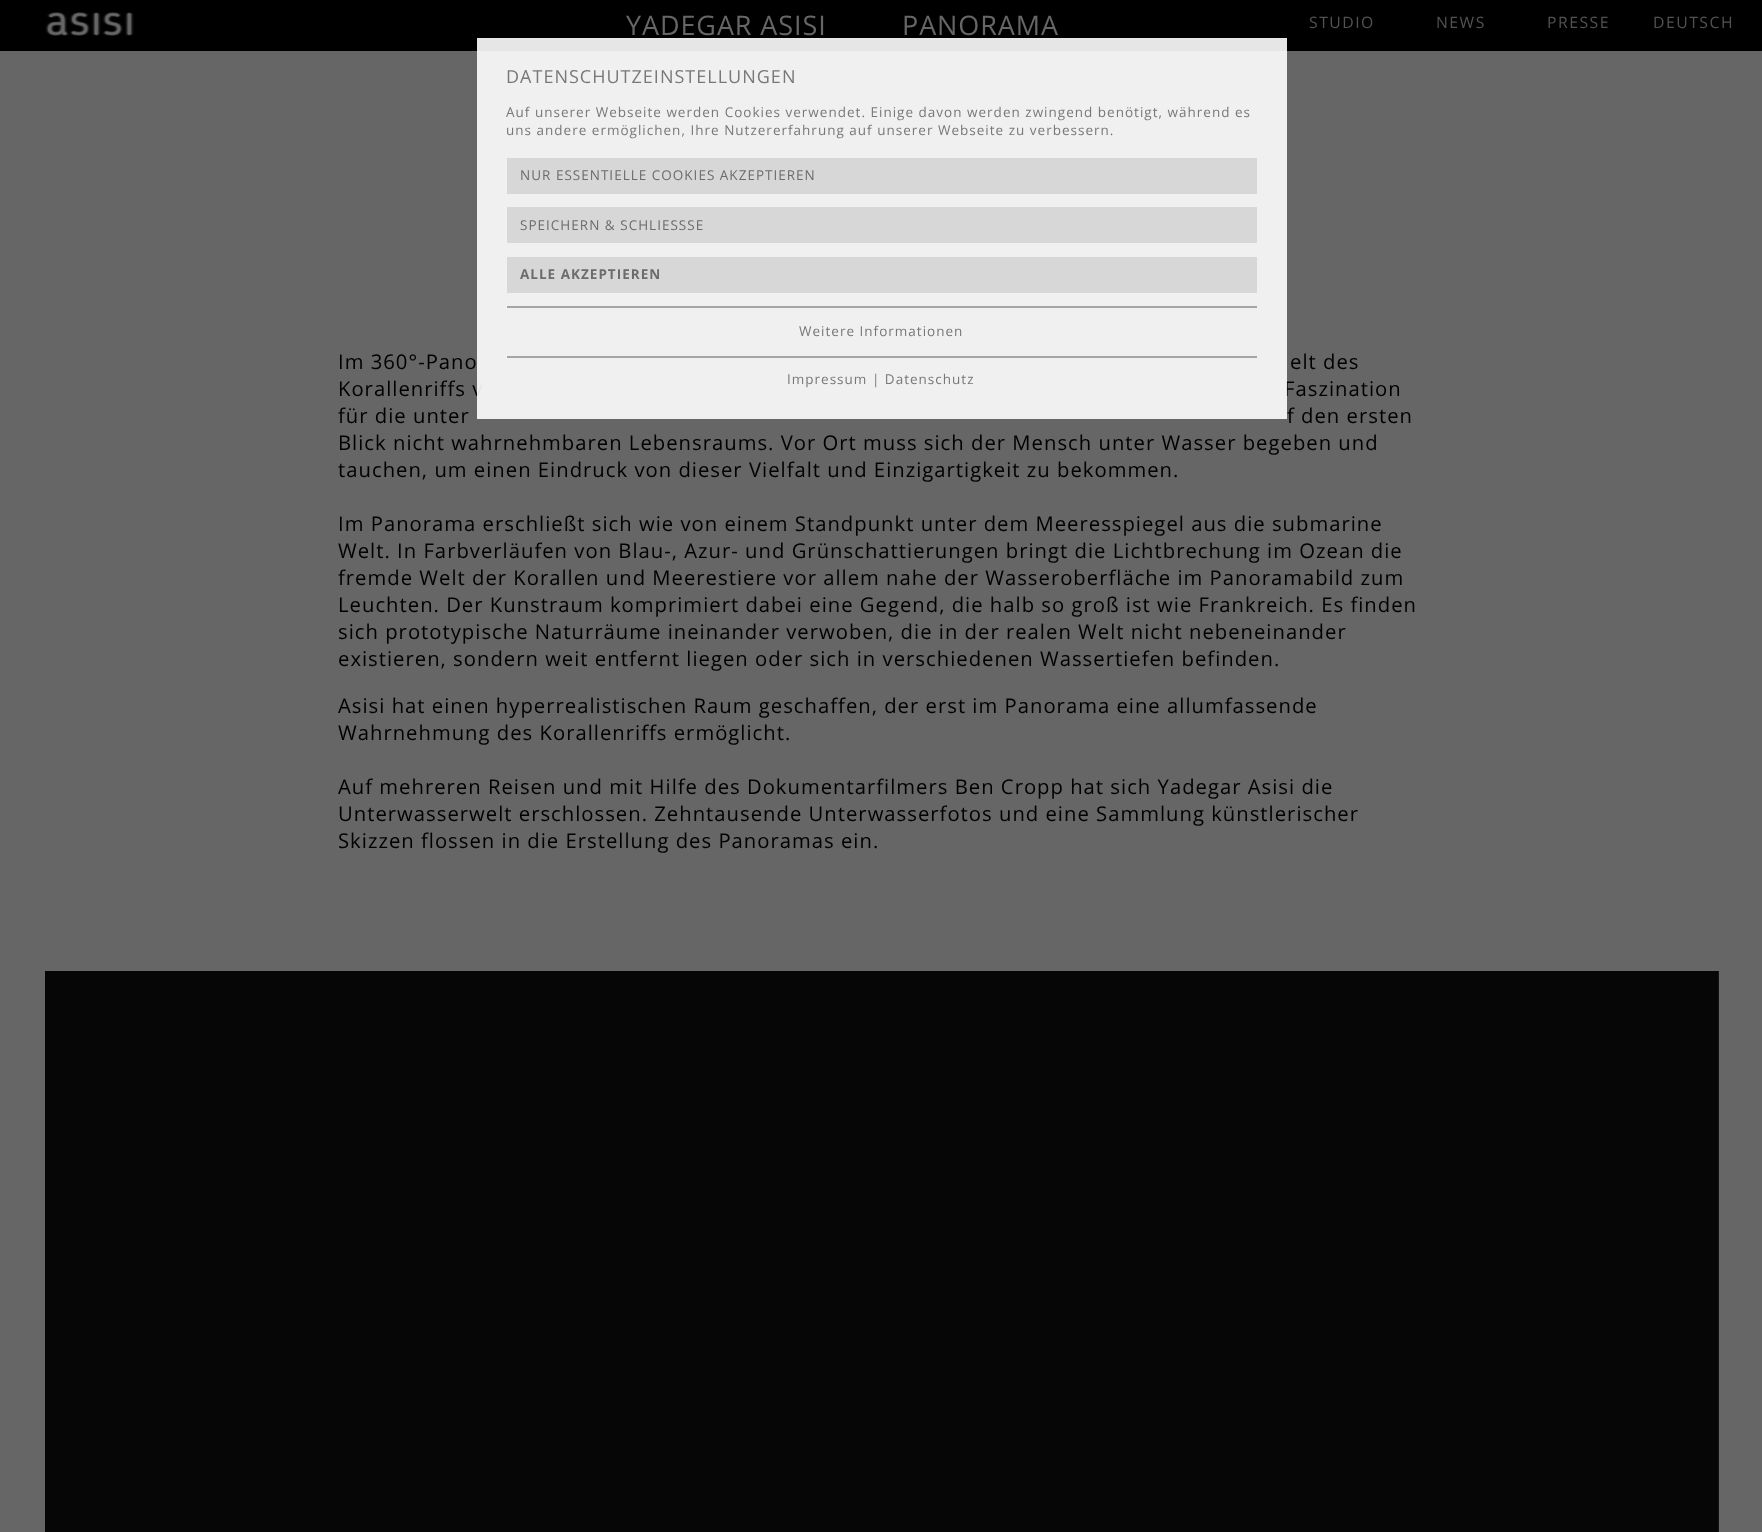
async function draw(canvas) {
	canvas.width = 1762;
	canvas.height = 1532;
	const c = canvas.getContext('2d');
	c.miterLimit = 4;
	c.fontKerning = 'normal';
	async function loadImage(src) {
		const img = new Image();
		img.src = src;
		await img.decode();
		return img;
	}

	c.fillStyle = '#666';
	c.fillRect(0, 0, 1762, 1532);
	c.fillStyle = '#000';
	c.fillRect(0, 0, 1762, 51);
	c.drawImage(await loadImage('img1.png'), 45, 12, 89, 24);
	c.letterSpacing = '0.9px';
	c.font = '27px Open Sans';
	c.fillStyle = '#666';
	c.fillText('YADEGAR ASISI', 626, 35);
	c.fillText('PANORAMA', 902, 35);
	c.letterSpacing = '1.5px';
	c.font = '15.75px Open Sans';
	c.fillStyle = '#525252';
	for (const [text, x, y] of [
		['STUDIO', 1309, 28],
		['NEWS', 1436, 28],
		['PRESSE', 1547, 28],
		['DEUTSCH', 1653, 28],
	]) {
		c.fillText(text, x, y);
	}
	c.letterSpacing = '1.01px';
	c.font = '20.25px Open Sans';
	c.fillStyle = '#000';
	c.fillText('Korallenriffs v', 338, 396);
	c.fillText('Faszination', 1284, 396);
	c.fillStyle = '#ffffffe6';
	c.fillRect(477, 38, 810, 381);
	c.font = '18px Open Sans';
	c.fillStyle = '#787878';
	c.fillText('DATENSCHUTZEINSTELLUNGEN', 506, 83);
	c.font = '13.5px Open Sans';
	c.fillText('Auf unserer Webseite werden Cookies verwendet. Einige davon werden zwingend benötigt, während es', 506, 117);
	c.fillText('uns andere ermöglichen, Ihre Nutzererfahrung auf unserer Webseite zu verbessern.', 506, 135);
	c.fillStyle = '#d7d7d7';
	c.fillRect(507, 158, 750, 36);
	c.fillStyle = '#6c6c6c';
	c.fillText('NUR ESSENTIELLE COOKIES AKZEPTIEREN', 520, 180);
	c.fillStyle = '#d7d7d7';
	c.fillRect(507, 207, 750, 36);
	c.fillStyle = '#6c6c6c';
	c.fillText('SPEICHERN & SCHLIESSSE', 520, 230);
	c.fillStyle = '#d7d7d7';
	c.fillRect(507, 257, 750, 36);
	c.font = 'bold 13.5px Open Sans';
	c.fillStyle = '#6c6c6c';
	c.fillText('ALLE AKZEPTIEREN', 520, 279);
	c.fillStyle = '#a5a5a5';
	c.fillRect(507, 306, 750, 2);
	c.font = '13.5px Open Sans';
	c.fillStyle = '#787878';
	c.fillText('Weitere Informationen', 799, 336);
	c.fillStyle = '#a5a5a5';
	c.fillRect(507, 356, 750, 2);
	c.fillStyle = '#787878';
	c.fillText('Impressum | Datenschutz', 787, 384);
	c.font = '20.25px Open Sans';
	c.fillStyle = '#000';
	for (const [text, x, y] of [
		['Im 360°-Pano', 338, 369],
		['elt des', 1290, 369],
		['für die unter', 338, 423],
		['f den ersten', 1287, 423],
		['Blick nicht wahrnehmbaren Lebensraums. Vor Ort muss sich der Mensch unter Wasser begeben und', 338, 450],
		['tauchen, um einen Eindruck von dieser Vielfalt und Einzigartigkeit zu bekommen.', 338, 477],
		['Im Panorama erschließt sich wie von einem Standpunkt unter dem Meeresspiegel aus die submarine', 338, 531],
		['Welt. In Farbverläufen von Blau-, Azur- und Grünschattierungen bringt die Lichtbrechung im Ozean die', 338, 558],
		['fremde Welt der Korallen und Meerestiere vor allem nahe der Wasseroberfläche im Panoramabild zum', 338, 585],
		['Leuchten. Der Kunstraum komprimiert dabei eine Gegend, die halb so groß ist wie Frankreich. Es finden', 338, 612],
		['sich prototypische Naturräume ineinander verwoben, die in der realen Welt nicht nebeneinander', 338, 639],
		['existieren, sondern weit entfernt liegen oder sich in verschiedenen Wassertiefen befinden.', 338, 666],
		['Asisi hat einen hyperrealistischen Raum geschaffen, der erst im Panorama eine allumfassende', 338, 713],
		['Wahrnehmung des Korallenriffs ermöglicht.', 338, 740],
		['Auf mehreren Reisen und mit Hilfe des Dokumentarfilmers Ben Cropp hat sich Yadegar Asisi die', 338, 794],
		['Unterwasserwelt erschlossen. Zehntausende Unterwasserfotos und eine Sammlung künstlerischer', 338, 821],
		['Skizzen flossen in die Erstellung des Panoramas ein.', 338, 848],
	]) {
		c.fillText(text, x, y);
	}
	c.fillStyle = '#060606';
	c.fillRect(45, 971, 1673, 561);
	c.fillStyle = '#141414';
	c.fillRect(1718, 971, 1, 561);
}

draw(document.querySelector('canvas'));
